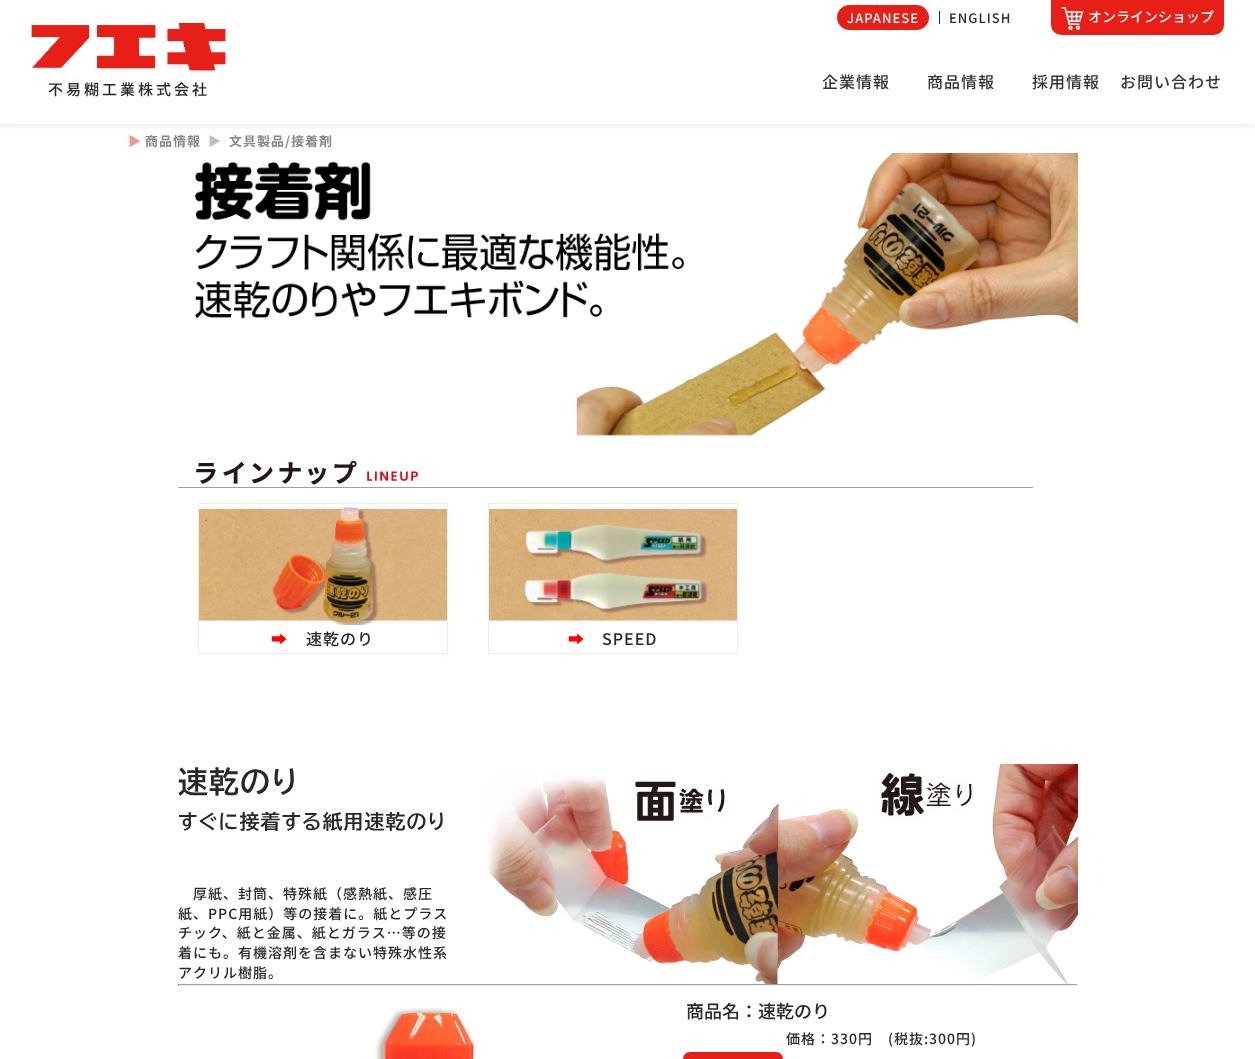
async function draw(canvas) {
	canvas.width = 1255;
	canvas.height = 1059;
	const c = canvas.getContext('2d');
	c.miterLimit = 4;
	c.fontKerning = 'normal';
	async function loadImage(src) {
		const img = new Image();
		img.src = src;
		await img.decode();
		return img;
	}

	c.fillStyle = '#fff';
	c.fillRect(0, 0, 1255, 1059);
	c.save();
	c.beginPath();
	c.rect(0, 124, 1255, 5);
	c.clip();
	c.fillStyle = '#0000001a';
	c.filter = 'blur(5px)';
	c.beginPath();
	c.rect(0, 1, 1255, 124);
	c.fill();
	c.filter = 'none';
	c.restore();
	c.fillStyle = '#e71f17';
	c.beginPath();
	c.roundRect(837, 5, 92, 25, 12.5);
	c.fill();
	c.letterSpacing = '1px';
	c.font = '500 13px Noto Sans JP';
	c.fillStyle = '#fff';
	c.fillText('JAPANESE', 847, 23);
	c.fillStyle = '#282828';
	c.fillRect(939, 11, 1, 13);
	c.fillText('ENGLISH', 949, 23);
	c.fillStyle = '#e71f17';
	c.beginPath();
	c.roundRect(1051, 0, 173, 35, [0, 0, 10, 10]);
	c.fill();
	c.drawImage(await loadImage('img1.png'), 1061, 7, 23, 23);
	c.letterSpacing = '0px';
	c.font = '500 14px Noto Sans JP';
	c.fillStyle = '#fff';
	c.fillText('オンラインショップ', 1088, 22);
	c.drawImage(await loadImage('img2.png'), 31, 23, 195, 48);
	c.letterSpacing = '3px';
	c.font = '500 15px Noto Sans JP';
	c.fillStyle = '#282828';
	c.fillText('不易糊工業株式会社', 48, 95);
	c.letterSpacing = '1px';
	c.font = '500 16px Noto Sans JP';
	c.fillStyle = '#333';
	for (const [text, x, y] of [
		['企業情報', 822, 88],
		['商品情報', 927, 88],
		['採用情報', 1032, 88],
		['お問い合わせ', 1120, 88],
	]) {
		c.fillText(text, x, y);
	}
	c.font = '13px Noto Sans JP';
	c.fillStyle = '#f3948f';
	c.fillText('▶', 128, 146);
	c.font = 'bold 13px Noto Sans JP';
	c.fillStyle = '#888';
	c.fillText('商品情報', 145, 146);
	c.fillStyle = '#c0c0c0';
	c.fillText('▶', 208, 146);
	c.fillStyle = '#888';
	c.fillText('文具製品/接着剤', 229, 146);
	c.drawImage(await loadImage('img3.png'), 195, 153, 883, 283);
	c.drawImage(await loadImage('img4.png'), 178, 460, 855, 28);
	c.strokeStyle = '#f6eae2';
	c.strokeRect(198.5, 503.5, 249, 150);
	c.drawImage(await loadImage('img5.png'), 199, 504, 248, 121);
	c.font = '500 16px Noto Sans JP';
	c.fillStyle = '#f00';
	c.fillText('➡', 271, 645);
	c.fillStyle = '#282828';
	c.fillText('速乾のり', 306, 645);
	c.strokeRect(488.5, 503.5, 249, 150);
	c.drawImage(await loadImage('img6.png'), 489, 504, 248, 121);
	c.fillStyle = '#f00';
	c.fillText('➡', 568, 645);
	c.fillStyle = '#282828';
	c.fillText('SPEED', 602, 645);
	c.font = 'bold 30px BIZ UDPGothic';
	c.fillText('速乾のり', 178, 793);
	c.font = 'bold 20px BIZ UDPGothic';
	c.fillText('すぐに接着する紙用速乾のり', 178, 829);
	c.drawImage(await loadImage('img7.png'), 486, 764, 592, 220);
	c.font = '500 14px Noto Sans JP';
	for (const [text, x, y] of [
		['厚紙、封筒、特殊紙（感熱紙、感圧', 193, 899],
		['紙、PPC用紙）等の接着に。紙とプラス', 178, 919],
		['チック、紙と金属、紙とガラス…等の接', 178, 938],
		['着にも。有機溶剤を含まない特殊水性系', 178, 958],
		['アクリル樹脂。', 178, 978],
	]) {
		c.fillText(text, x, y);
	}
	for (const [x, y, w, h, color] of [
		[178, 984, 900, 1, '#9f9f9f'],
		[1077, 984, 1, 2, '#eee'],
		[178, 985, 900, 1, '#eee'],
		[178, 984, 1, 2, '#9f9f9f'],
	]) {
		c.fillStyle = color;
		c.fillRect(x, y, w, h);
	}
	c.drawImage(await loadImage('img8.png'), 375, 1007, 103, 52);
	c.letterSpacing = '0px';
	c.font = '500 18px Noto Sans JP';
	c.fillStyle = '#282828';
	c.fillText('商品名：速乾のり', 686, 1018);
	c.letterSpacing = '1px';
	c.font = '500 14px Noto Sans JP';
	c.fillText('価格：330円　(税抜:300円)', 786, 1044);
	c.fillStyle = '#e71f17';
	c.beginPath();
	c.roundRect(683, 1052, 100, 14, 7);
	c.fill();
}

draw(document.querySelector('canvas'));
